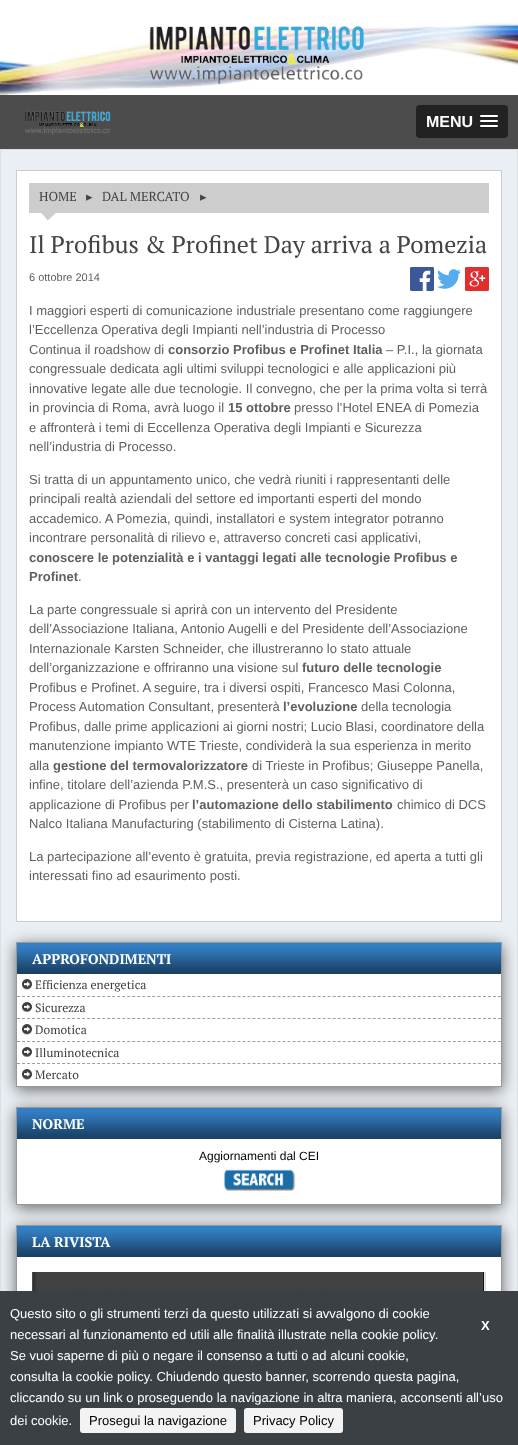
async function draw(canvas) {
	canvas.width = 518;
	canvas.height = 1445;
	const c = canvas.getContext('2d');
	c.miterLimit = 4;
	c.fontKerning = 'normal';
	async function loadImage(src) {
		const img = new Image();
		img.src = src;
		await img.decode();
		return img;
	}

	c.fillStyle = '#fff';
	c.fillRect(0, 0, 518, 1445);
	c.drawImage(await loadImage('img1.png'), 0, 22, 518, 73);
	c.drawImage(await loadImage('img2.png'), 149, 26, 215, 58);
	c.fillStyle = '#4c4c4c';
	c.fillRect(0, 95, 518, 54);
	c.drawImage(await loadImage('img3.png'), 25, 111, 86, 24);
	c.fillStyle = '#222';
	c.beginPath();
	c.roundRect(416, 105, 92, 33, 4);
	c.fill();
	c.font = 'bold 16px Liberation Sans';
	c.fillStyle = '#fff';
	c.fillText('MENU', 426, 127);
	c.fillStyle = '#1a1a1a';
	c.beginPath();
	c.moveTo(480, 116.5);
	c.bezierCurveTo(479, 118.5, 483.5, 118, 483.5, 118);
	c.lineTo(494.5, 118);
	c.bezierCurveTo(494.5, 118, 499, 118.5, 498, 116.5);
	c.bezierCurveTo(497, 117.5, 490.5, 117, 489, 117);
	c.bezierCurveTo(487.5, 117, 481, 117.5, 480, 116.5);
	c.closePath();
	c.fill();
	c.fillStyle = '#fff';
	c.beginPath();
	c.roundRect(480, 115, 18, 2, 1);
	c.fill();
	c.fillStyle = '#1a1a1a';
	c.beginPath();
	c.moveTo(480, 121.5);
	c.bezierCurveTo(479, 123.5, 483.5, 123, 483.5, 123);
	c.lineTo(494.5, 123);
	c.bezierCurveTo(494.5, 123, 499, 123.5, 498, 121.5);
	c.bezierCurveTo(497, 122.5, 490.5, 122, 489, 122);
	c.bezierCurveTo(487.5, 122, 481, 122.5, 480, 121.5);
	c.closePath();
	c.fill();
	c.fillStyle = '#fff';
	c.beginPath();
	c.roundRect(480, 120, 18, 2, 1);
	c.fill();
	c.fillStyle = '#1a1a1a';
	c.beginPath();
	c.moveTo(480, 126.5);
	c.bezierCurveTo(479, 128.5, 483.5, 128, 483.5, 128);
	c.lineTo(494.5, 128);
	c.bezierCurveTo(494.5, 128, 499, 128.5, 498, 126.5);
	c.bezierCurveTo(497, 127.5, 490.5, 127, 489, 127);
	c.bezierCurveTo(487.5, 127, 481, 127.5, 480, 126.5);
	c.closePath();
	c.fill();
	c.fillStyle = '#fff';
	c.beginPath();
	c.roundRect(480, 125, 18, 2, 1);
	c.fill();
	c.fillStyle = '#eaeff5';
	c.fillRect(1, 150, 516, 1141);
	c.strokeStyle = '#dfdfdf';
	c.strokeRect(0.5, 149.5, 517, 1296);
	c.fillStyle = '#fff';
	c.beginPath();
	c.rect(16.5, 170.5, 485, 751);
	c.fill();
	c.strokeStyle = '#ccc';
	c.stroke();
	c.fillStyle = '#cdcdcd';
	c.fillRect(29, 183, 460, 38);
	c.drawImage(await loadImage('img4.png'), 29, 213, 460, 8);
	c.font = '13px PT Serif';
	c.fillStyle = '#444';
	c.fillText('HOME', 39, 201);
	c.font = '13px DejaVu Sans';
	c.fillText('▸', 86, 201);
	c.font = '13px PT Serif';
	c.fillText('DAL MERCATO', 102, 201);
	c.font = '13px DejaVu Sans';
	c.fillText('▸', 200, 201);
	c.font = '24px PT Serif';
	c.fillText('Il Profibus & Profinet Day arriva a Pomezia', 29, 253);
	c.font = '11px Liberation Sans';
	c.fillStyle = '#5f5f5f';
	c.fillText('6 ottobre 2014', 29, 281);
	c.drawImage(await loadImage('img5.png'), 410, 267, 24, 24);
	c.drawImage(await loadImage('img6.png'), 437, 269, 24, 20);
	c.drawImage(await loadImage('img7.png'), 465, 267, 24, 24);
	c.font = '13px Liberation Sans';
	for (const [text, x, y] of [
		['I maggiori esperti di comunicazione industriale presentano come raggiungere', 29, 315],
		['l’Eccellenza Operativa degli Impianti nell’industria di Processo', 29, 334],
		['Continua il roadshow di', 29, 354],
	]) {
		c.fillText(text, x, y);
	}
	c.font = 'bold 13px Liberation Sans';
	c.fillText('consorzio Profibus e Profinet Italia', 168, 354);
	c.font = '13px Liberation Sans';
	for (const [text, x, y] of [
		['– P.I., la giornata', 386, 354],
		['congressuale dedicata agli ultimi sviluppi tecnologici e alle applicazioni più', 29, 373],
		['innovative legate alle due tecnologie. Il convegno, che per la prima volta si terrà', 29, 393],
		['in provincia di Roma, avrà luogo il', 29, 412],
	]) {
		c.fillText(text, x, y);
	}
	c.font = 'bold 13px Liberation Sans';
	c.fillText('15 ottobre', 228, 412);
	c.font = '13px Liberation Sans';
	for (const [text, x, y] of [
		['presso l’Hotel ENEA di Pomezia', 294, 412],
		['e affronterà i temi di Eccellenza Operativa degli Impianti e Sicurezza', 29, 432],
		['nell’industria di Processo.', 29, 451],
		['Si tratta di un appuntamento unico, che vedrà riuniti i rappresentanti delle', 29, 484],
		['principali realtà aziendali del settore ed importanti esperti del mondo', 29, 503],
		['accademico. A Pomezia, quindi, installatori e system integrator potranno', 29, 523],
		['incontrare personalità di rilievo e, attraverso concreti casi applicativi,', 29, 542],
	]) {
		c.fillText(text, x, y);
	}
	c.font = 'bold 13px Liberation Sans';
	c.fillText('conoscere le potenzialità e i vantaggi legati alle tecnologie Profibus e', 29, 562);
	c.fillText('Profinet', 29, 581);
	c.font = '13px Liberation Sans';
	for (const [text, x, y] of [
		['.', 78, 581],
		['La parte congressuale si aprirà con un intervento del Presidente', 29, 614],
		['dell’Associazione Italiana, Antonio Augelli e del Presidente dell’Associazione', 29, 633],
		['Internazionale Karsten Schneider, che illustreranno lo stato attuale', 29, 653],
		['dell’organizzazione e offriranno una visione sul', 29, 672],
	]) {
		c.fillText(text, x, y);
	}
	c.font = 'bold 13px Liberation Sans';
	c.fillText('futuro delle tecnologie', 302, 672);
	c.font = '13px Liberation Sans';
	c.fillText('Profibus e Profinet. A seguire, tra i diversi ospiti, Francesco Masi Colonna,', 29, 692);
	c.fillText('Process Automation Consultant, presenterà', 29, 711);
	c.font = 'bold 13px Liberation Sans';
	c.fillText('l’evoluzione', 283, 711);
	c.font = '13px Liberation Sans';
	for (const [text, x, y] of [
		['della tecnologia', 361, 711],
		['Profibus, dalle prime applicazioni ai giorni nostri; Lucio Blasi, coordinatore della', 29, 731],
		['manutenzione impianto WTE Trieste, condividerà la sua esperienza in merito', 29, 750],
		['alla', 29, 770],
	]) {
		c.fillText(text, x, y);
	}
	c.font = 'bold 13px Liberation Sans';
	c.fillText('gestione del termovalorizzatore', 53, 770);
	c.font = '13px Liberation Sans';
	for (const [text, x, y] of [
		['di Trieste in Profibus; Giuseppe Panella,', 252, 770],
		['infine, titolare dell’azienda P.M.S., presenterà un caso significativo di', 29, 789],
		['applicazione di Profibus per', 29, 809],
	]) {
		c.fillText(text, x, y);
	}
	c.font = 'bold 13px Liberation Sans';
	c.fillText('l’automazione dello stabilimento', 192, 809);
	c.font = '13px Liberation Sans';
	for (const [text, x, y] of [
		['chimico di DCS', 397, 809],
		['Nalco Italiana Manufacturing (stabilimento di Cisterna Latina).', 29, 828],
		['La partecipazione all’evento è gratuita, previa registrazione, ed aperta a tutti gli', 29, 861],
		['interessati fino ad esaurimento posti.', 29, 880],
	]) {
		c.fillText(text, x, y);
	}
	c.fillStyle = '#666';
	c.filter = 'blur(7.5px)';
	c.beginPath();
	c.rect(16, 945, 486, 145);
	c.fill();
	c.filter = 'none';
	c.strokeStyle = '#999';
	c.strokeRect(16.5, 942.5, 485, 144);
	c.fillStyle = '#337fc5';
	c.fillRect(17, 943, 484, 31);
	c.drawImage(await loadImage('img8.png'), 17, 947, 484, 27);
	c.font = 'bold 14px PT Serif';
	c.fillStyle = '#fff';
	c.fillText('APPROFONDIMENTI', 32, 964);
	c.fillRect(17, 974, 484, 112);
	c.drawImage(await loadImage('img9.png'), 22, 979, 10, 11);
	c.beginPath();
	c.moveTo(17, 996.5);
	c.lineTo(501, 996.5);
	c.strokeStyle = '#9e9e9e';
	c.setLineDash([3, 2.01]);
	c.stroke();
	c.font = '12px PT Serif';
	c.fillStyle = '#3e3e40';
	c.fillText('Efficienza energetica', 35, 989);
	c.drawImage(await loadImage('img10.png'), 22, 1002, 10, 10);
	c.beginPath();
	c.moveTo(17, 1018.5);
	c.lineTo(501, 1018.5);
	c.stroke();
	c.fillText('Sicurezza', 35, 1012);
	c.drawImage(await loadImage('img9.png'), 22, 1024, 10, 11);
	c.beginPath();
	c.moveTo(17, 1041.5);
	c.lineTo(501, 1041.5);
	c.stroke();
	c.fillText('Domotica', 35, 1034);
	c.drawImage(await loadImage('img10.png'), 22, 1047, 10, 10);
	c.beginPath();
	c.moveTo(17, 1063.5);
	c.lineTo(501, 1063.5);
	c.stroke();
	c.fillText('Illuminotecnica', 35, 1057);
	c.drawImage(await loadImage('img11.png'), 22, 1069, 10, 11);
	c.fillText('Mercato', 35, 1079);
	c.fillStyle = '#666';
	c.filter = 'blur(7.5px)';
	c.beginPath();
	c.rect(16, 1110, 486, 98);
	c.fill();
	c.filter = 'none';
	c.strokeStyle = '#999';
	c.setLineDash([]);
	c.strokeRect(16.5, 1107.5, 485, 97);
	c.fillStyle = '#337fc5';
	c.fillRect(17, 1108, 484, 31);
	c.drawImage(await loadImage('img8.png'), 17, 1112, 484, 27);
	c.font = 'bold 14px PT Serif';
	c.fillStyle = '#fff';
	c.fillText('NORME', 32, 1129);
	c.fillRect(17, 1139, 484, 65);
	c.font = '12px Liberation Sans';
	c.fillStyle = '#000';
	c.fillText('Aggiornamenti dal CEI', 199, 1160);
	c.drawImage(await loadImage('img12.png'), 224, 1169, 72, 22);
	c.fillStyle = '#666';
	c.filter = 'blur(7.5px)';
	c.beginPath();
	c.rect(16, 1228, 486, 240);
	c.fill();
	c.filter = 'none';
	c.strokeRect(16.5, 1225.5, 485, 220);
	c.fillStyle = '#337fc5';
	c.fillRect(17, 1226, 484, 31);
	c.drawImage(await loadImage('img8.png'), 17, 1230, 484, 27);
	c.font = 'bold 14px PT Serif';
	c.fillStyle = '#fff';
	c.fillText('LA RIVISTA', 32, 1247);
	c.fillRect(17, 1257, 484, 34);
	c.drawImage(await loadImage('img13.png'), 32, 1272, 454, 19);
	c.fillStyle = '#3b4045';
	c.fillRect(0, 1291, 518, 154);
	c.font = '13px Liberation Sans';
	c.fillStyle = '#fff';
	c.fillText('Questo sito o gli strumenti terzi da questo utilizzati si avvalgono di cookie', 10, 1318);
	c.font = 'bold 13px Liberation Sans';
	c.fillText('X', 481, 1330);
	c.font = '13px Liberation Sans';
	for (const [text, x, y] of [
		['necessari al funzionamento ed utili alle finalità illustrate nella cookie policy.', 10, 1339],
		['Se vuoi saperne di più o negare il consenso a tutti o ad alcuni cookie,', 10, 1360],
		['consulta la cookie policy. Chiudendo questo banner, scorrendo questa pagina,', 10, 1381],
		['cliccando su un link o proseguendo la navigazione in altra maniera, acconsenti all’uso', 10, 1402],
		['dei cookie.', 10, 1425],
	]) {
		c.fillText(text, x, y);
	}
	c.fillStyle = '#f3f3f3';
	c.beginPath();
	c.roundRect(80, 1408, 156, 25, 3);
	c.fill();
	c.fillStyle = '#000';
	c.fillText('Prosegui la navigazione', 89, 1425);
	c.fillStyle = '#f3f3f3';
	c.beginPath();
	c.roundRect(244, 1408, 99, 25, 3);
	c.fill();
	c.fillStyle = '#000';
	c.fillText('Privacy Policy', 253, 1425);
}

draw(document.querySelector('canvas'));
